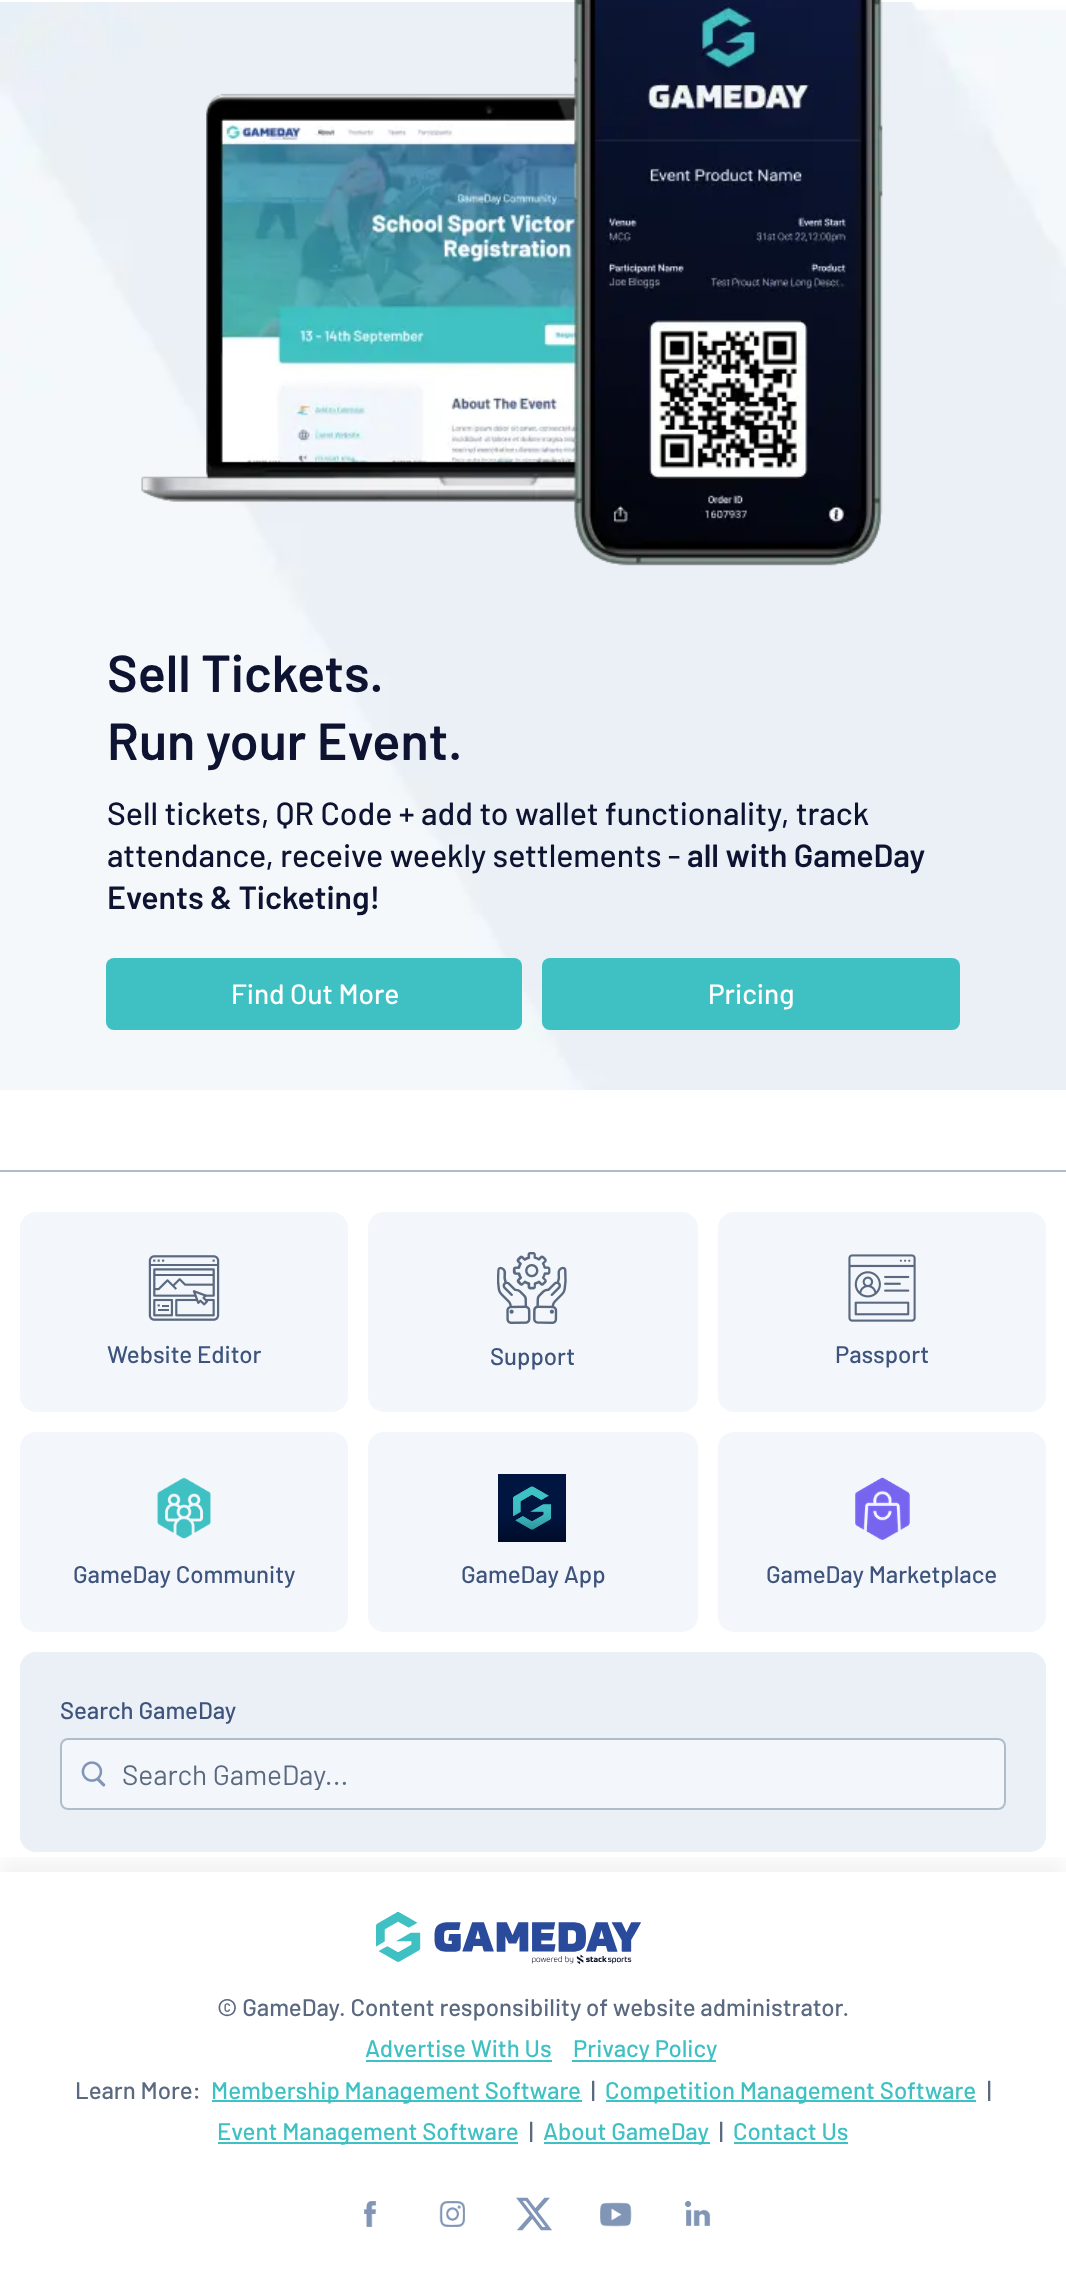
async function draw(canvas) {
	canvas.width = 1066;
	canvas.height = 2289;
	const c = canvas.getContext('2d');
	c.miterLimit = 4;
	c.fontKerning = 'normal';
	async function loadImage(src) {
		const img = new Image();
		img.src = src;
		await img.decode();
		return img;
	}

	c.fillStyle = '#fff';
	c.fillRect(0, 0, 1066, 2289);
	c.drawImage(await loadImage('img1.png'), 0, 2, 1066, 1088);
	c.drawImage(await loadImage('img2.png'), 141, 0, 742, 566);
	c.font = '600 52px Barlow';
	c.fillStyle = '#0d1330';
	c.fillText('Sell Tickets.', 107, 692);
	c.fillText('Run your Event.', 107, 760);
	c.font = '500 32px Barlow';
	c.fillText('Sell tickets, QR Code + add to wallet functionality, track', 107, 825);
	c.fillText('attendance, receive weekly settlements -', 107, 867);
	c.font = '600 32px Barlow';
	c.fillText('all with GameDay', 687, 867);
	c.fillText('Events & Ticketing!', 107, 909);
	c.fillStyle = '#3fc0c3';
	c.beginPath();
	c.roundRect(106, 958, 416, 72, 8);
	c.fill();
	c.font = '500 28px Barlow';
	c.fillStyle = '#fff';
	c.fillText('Find Out More', 231, 1004);
	c.fillStyle = '#3fc0c3';
	c.beginPath();
	c.roundRect(542, 958, 418, 72, 8);
	c.fill();
	c.fillStyle = '#fff';
	c.fillText('Pricing', 708, 1004);
	c.fillStyle = '#afbdca';
	c.fillRect(0, 1170, 1066, 2);
	c.fillStyle = '#f3f7fb';
	c.beginPath();
	c.roundRect(22, 1214, 324, 196, 14);
	c.fill();
	c.strokeStyle = '#f3f7fb';
	c.lineWidth = 4;
	c.stroke();
	c.drawImage(await loadImage('img3.png'), 148, 1255, 72, 66);
	c.font = '500 24px Barlow';
	c.fillStyle = '#3e547d';
	c.fillText('Website Editor', 107, 1363);
	c.fillStyle = '#f3f7fb';
	c.beginPath();
	c.roundRect(370, 1214, 326, 196, 14);
	c.fill();
	c.stroke();
	c.drawImage(await loadImage('img4.png'), 497, 1252, 70, 72);
	c.fillStyle = '#3e547d';
	c.fillText('Support', 490, 1365);
	c.fillStyle = '#f3f7fb';
	c.beginPath();
	c.roundRect(720, 1214, 324, 196, 14);
	c.fill();
	c.stroke();
	c.drawImage(await loadImage('img5.png'), 848, 1254, 68, 68);
	c.fillStyle = '#3e547d';
	c.fillText('Passport', 835, 1363);
	c.fillStyle = '#f3f7fb';
	c.beginPath();
	c.roundRect(22, 1434, 324, 196, 14);
	c.fill();
	c.stroke();
	c.drawImage(await loadImage('img6.png'), 157, 1477, 54, 62);
	c.fillStyle = '#3e547d';
	c.fillText('GameDay Community', 73, 1583);
	c.fillStyle = '#f3f7fb';
	c.beginPath();
	c.roundRect(370, 1434, 326, 196, 14);
	c.fill();
	c.stroke();
	c.drawImage(await loadImage('img7.png'), 498, 1474, 68, 68);
	c.fillStyle = '#3e547d';
	c.fillText('GameDay App', 461, 1583);
	c.fillStyle = '#f3f7fb';
	c.beginPath();
	c.roundRect(720, 1434, 324, 196, 14);
	c.fill();
	c.stroke();
	c.drawImage(await loadImage('img8.png'), 855, 1477, 55, 63);
	c.fillStyle = '#3e547d';
	c.fillText('GameDay Marketplace', 766, 1583);
	c.save();
	c.beginPath();
	c.rect(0, 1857, 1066, 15);
	c.clip();
	c.fillStyle = '#0000000d';
	c.filter = 'blur(10px)';
	c.beginPath();
	c.rect(0, 1860, 1066, 418);
	c.fill();
	c.filter = 'none';
	c.restore();
	c.fillStyle = '#eaf0f5';
	c.beginPath();
	c.roundRect(20, 1652, 1026, 200, 16);
	c.fill();
	c.fillStyle = '#3e547d';
	c.fillText('Search GameDay', 60, 1719);
	c.fillStyle = '#f3f7fb';
	c.beginPath();
	c.roundRect(60, 1738, 946, 72, 8);
	c.fill();
	c.drawImage(await loadImage('img9.png'), 81, 1761, 25, 26);
	c.beginPath();
	c.roundRect(61, 1739, 944, 70, 7);
	c.strokeStyle = '#afbdca';
	c.lineWidth = 2;
	c.stroke();
	c.save();
	c.beginPath();
	c.rect(122, 1756, 842, 34);
	c.clip();
	c.font = '28px Barlow';
	c.fillStyle = '#5a697f';
	c.fillText('Search GameDay...', 122, 1785);
	c.restore();
	c.drawImage(await loadImage('img10.png'), 376, 1912, 265, 52);
	c.fillStyle = '#5a697f';
	c.fillText('© GameDay. Content responsibility of website administrator.', 217, 2016);
	c.fillStyle = '#3fc0c3';
	c.fillText('Advertise With Us', 365, 2057);
	c.fillRect(366, 2060, 186, 2);
	c.fillRect(572, 2060, 144, 2);
	c.fillText('Privacy Policy', 573, 2057);
	c.fillStyle = '#5a697f';
	c.fillText('Learn More:', 75, 2099);
	c.fillStyle = '#3fc0c3';
	c.fillRect(212, 2100, 370, 2);
	c.fillText('Membership Management Software', 211, 2099);
	c.fillStyle = '#5a697f';
	c.fillText('|', 591, 2099);
	c.fillStyle = '#3fc0c3';
	c.fillRect(606, 2100, 370, 2);
	c.fillText('Competition Management Software', 605, 2099);
	c.fillStyle = '#5a697f';
	c.fillText('|', 987, 2099);
	c.fillStyle = '#3fc0c3';
	c.fillRect(218, 2142, 300, 2);
	c.fillText('Event Management Software', 217, 2140);
	c.fillStyle = '#5a697f';
	c.fillText('|', 529, 2140);
	c.fillStyle = '#3fc0c3';
	c.fillRect(544, 2142, 166, 2);
	c.fillText('About GameDay', 543, 2140);
	c.fillStyle = '#5a697f';
	c.fillText('|', 719, 2140);
	c.fillStyle = '#3fc0c3';
	c.fillText('Contact Us', 733, 2140);
	c.fillRect(734, 2142, 114, 2);
	c.drawImage(await loadImage('img11.png'), 364, 2201, 13, 26);
	c.drawImage(await loadImage('img12.png'), 439, 2201, 26, 26);
	c.drawImage(await loadImage('img13.png'), 516, 2197, 36, 34);
	c.drawImage(await loadImage('img14.png'), 600, 2202, 32, 25);
	c.drawImage(await loadImage('img15.png'), 684, 2200, 27, 26);
}

draw(document.querySelector('canvas'));
